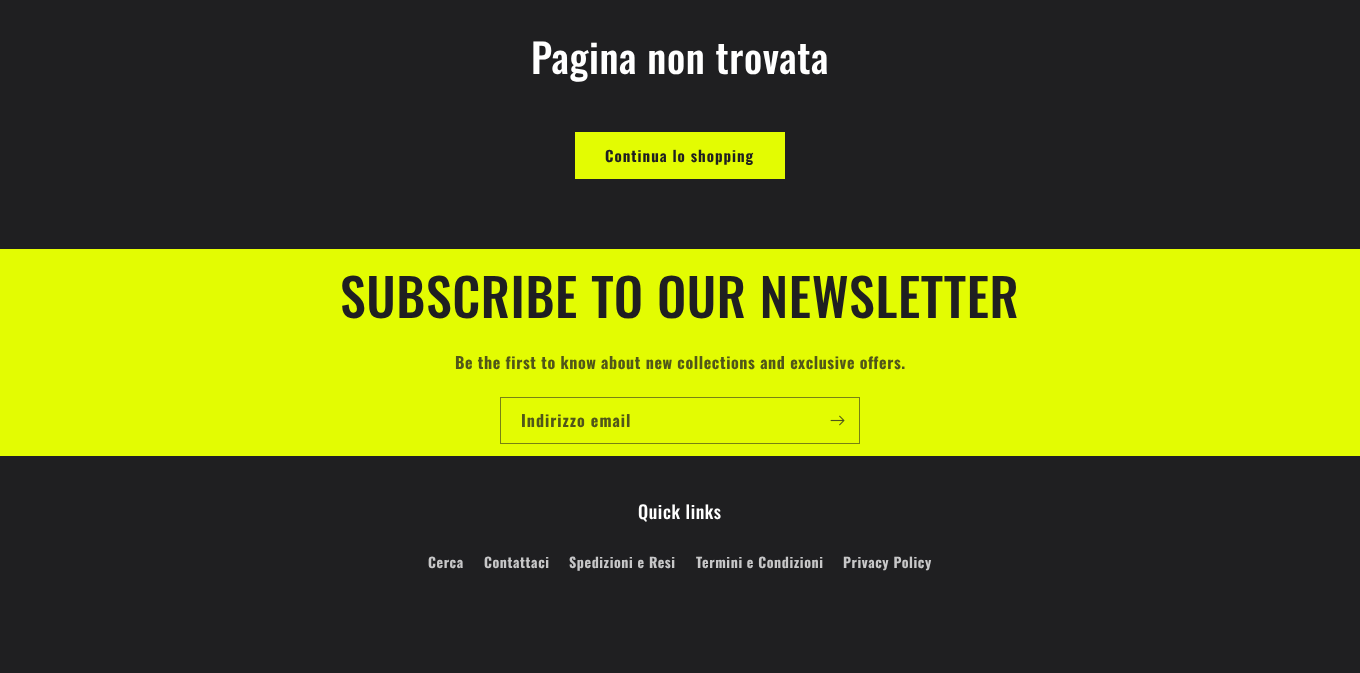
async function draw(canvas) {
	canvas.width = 1360;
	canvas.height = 673;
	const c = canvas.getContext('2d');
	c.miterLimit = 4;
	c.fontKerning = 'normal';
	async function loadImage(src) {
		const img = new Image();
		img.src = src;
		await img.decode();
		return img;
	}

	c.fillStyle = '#1f1f21';
	c.fillRect(0, 0, 1360, 673);
	c.letterSpacing = '0.6px';
	c.font = '500 40px Oswald';
	c.fillStyle = '#fff';
	c.fillText('Pagina non trovata', 531, 74);
	c.fillStyle = '#e3fc02';
	c.fillRect(575, 132, 210, 47);
	c.letterSpacing = '1px';
	c.font = 'bold 15px Oswald';
	c.fillStyle = '#1f1f21';
	c.fillText('Continua lo shopping', 605, 162);
	c.fillStyle = '#e3fc02';
	c.fillRect(0, 249, 1360, 207);
	c.letterSpacing = '0.6px';
	c.font = '500 52px Oswald';
	c.fillStyle = '#1f1f21';
	c.fillText('SUBSCRIBE TO OUR NEWSLETTER', 340, 318);
	c.font = 'bold 16px Oswald';
	c.fillStyle = '#505619';
	c.fillText('Be the first to know about new collections and exclusive offers.', 455, 369);
	c.strokeStyle = '#778213';
	c.strokeRect(500.5, 397.5, 359, 46);
	c.letterSpacing = '1px';
	c.fillText('Indirizzo email', 521, 427);
	c.drawImage(await loadImage('img1.png'), 830, 415, 15, 11);
	c.letterSpacing = '0.6px';
	c.font = '500 18px Oswald';
	c.fillStyle = '#fff';
	c.fillText('Quick links', 638, 519);
	c.font = 'bold 14px Oswald';
	c.fillStyle = '#c7c7c8';
	for (const [text, x, y] of [
		['Cerca', 428, 568],
		['Contattaci', 484, 568],
		['Spedizioni e Resi', 569, 568],
		['Termini e Condizioni', 696, 568],
		['Privacy Policy', 843, 568],
	]) {
		c.fillText(text, x, y);
	}
}

draw(document.querySelector('canvas'));
